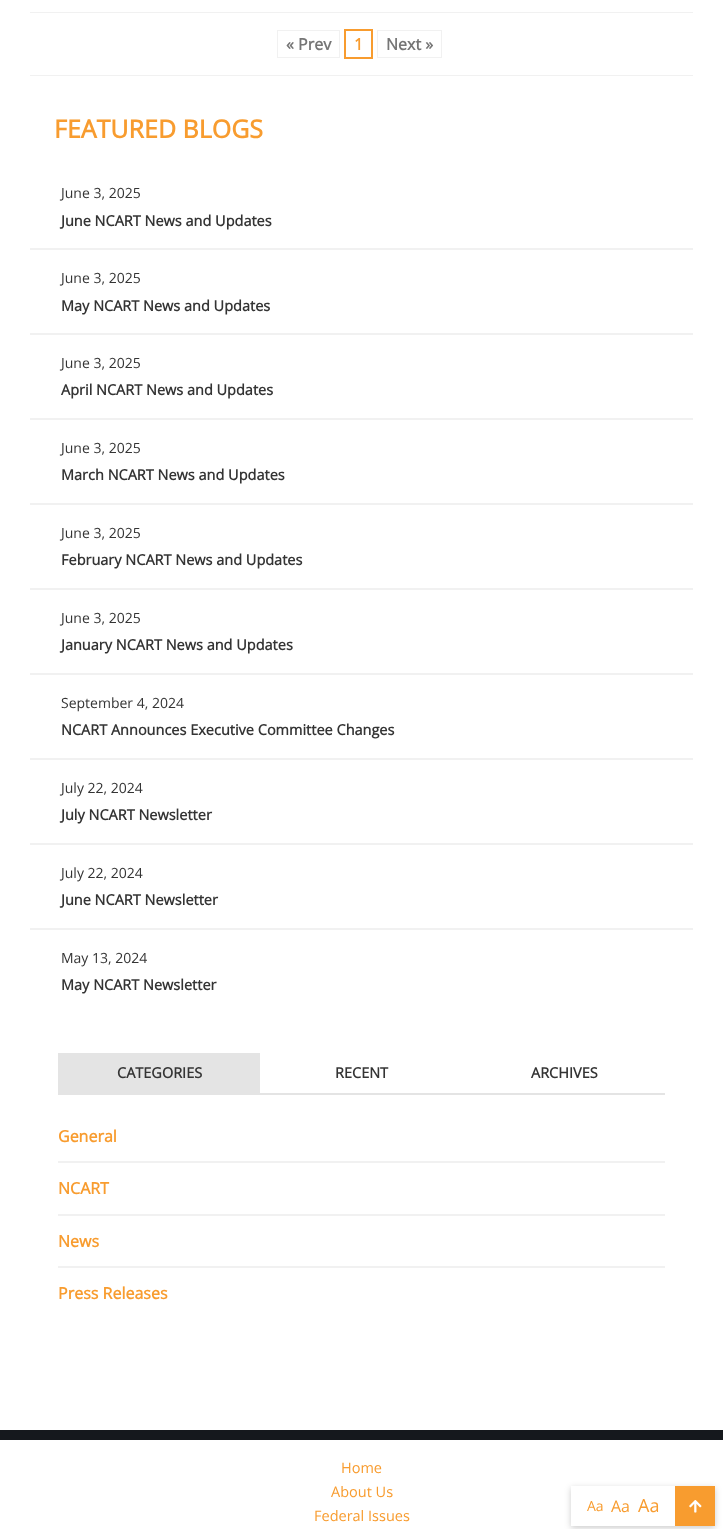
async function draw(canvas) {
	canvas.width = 723;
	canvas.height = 1529;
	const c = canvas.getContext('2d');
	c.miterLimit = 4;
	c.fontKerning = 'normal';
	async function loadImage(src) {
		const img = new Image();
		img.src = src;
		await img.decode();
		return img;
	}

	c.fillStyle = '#fff';
	c.fillRect(0, 0, 723, 1529);
	c.fillStyle = '#f1f1f1';
	c.fillRect(30, 12, 663, 1);
	c.fillRect(30, 75, 663, 1);
	c.strokeStyle = '#f1f1f1';
	c.strokeRect(277.5, 30.5, 62, 27);
	c.font = 'bold 16px Open Sans';
	c.fillStyle = '#767676';
	c.fillText('« Prev', 286, 50);
	c.strokeStyle = '#f89c2f';
	c.lineWidth = 2;
	c.strokeRect(345, 30, 27, 28);
	c.fillStyle = '#f89c2f';
	c.fillText('1', 354, 50);
	c.strokeStyle = '#f1f1f1';
	c.lineWidth = 1;
	c.strokeRect(377.5, 30.5, 64, 27);
	c.fillStyle = '#767676';
	c.fillText('Next »', 386, 50);
	c.font = 'bold 25px Open Sans';
	c.fillStyle = '#f89c2f';
	c.fillText('FEATURED BLOGS', 54, 138);
	c.fillStyle = '#f1f1f1';
	c.fillRect(30, 248, 663, 2);
	c.font = '14px Open Sans';
	c.fillStyle = '#343434';
	c.fillText('June 3, 2025', 61, 198);
	c.font = 'bold 14.5px Open Sans';
	c.fillText('June NCART News and Updates', 61, 226);
	c.fillStyle = '#f1f1f1';
	c.fillRect(30, 333, 663, 2);
	c.font = '14px Open Sans';
	c.fillStyle = '#343434';
	c.fillText('June 3, 2025', 61, 283);
	c.font = 'bold 14.5px Open Sans';
	c.fillText('May NCART News and Updates', 61, 311);
	c.fillStyle = '#f1f1f1';
	c.fillRect(30, 418, 663, 2);
	c.font = '14px Open Sans';
	c.fillStyle = '#343434';
	c.fillText('June 3, 2025', 61, 368);
	c.font = 'bold 14.5px Open Sans';
	c.fillText('April NCART News and Updates', 61, 395);
	c.fillStyle = '#f1f1f1';
	c.fillRect(30, 503, 663, 2);
	c.font = '14px Open Sans';
	c.fillStyle = '#343434';
	c.fillText('June 3, 2025', 61, 453);
	c.font = 'bold 14.5px Open Sans';
	c.fillText('March NCART News and Updates', 61, 480);
	c.fillStyle = '#f1f1f1';
	c.fillRect(30, 588, 663, 2);
	c.font = '14px Open Sans';
	c.fillStyle = '#343434';
	c.fillText('June 3, 2025', 61, 538);
	c.font = 'bold 14.5px Open Sans';
	c.fillText('February NCART News and Updates', 61, 565);
	c.fillStyle = '#f1f1f1';
	c.fillRect(30, 673, 663, 2);
	c.font = '14px Open Sans';
	c.fillStyle = '#343434';
	c.fillText('June 3, 2025', 61, 623);
	c.font = 'bold 14.5px Open Sans';
	c.fillText('January NCART News and Updates', 61, 650);
	c.fillStyle = '#f1f1f1';
	c.fillRect(30, 758, 663, 2);
	c.font = '14px Open Sans';
	c.fillStyle = '#343434';
	c.fillText('September 4, 2024', 61, 708);
	c.font = 'bold 14.5px Open Sans';
	c.fillText('NCART Announces Executive Committee Changes', 61, 735);
	c.fillStyle = '#f1f1f1';
	c.fillRect(30, 843, 663, 2);
	c.font = '14px Open Sans';
	c.fillStyle = '#343434';
	c.fillText('July 22, 2024', 61, 793);
	c.font = 'bold 14.5px Open Sans';
	c.fillText('July NCART Newsletter', 61, 820);
	c.fillStyle = '#f1f1f1';
	c.fillRect(30, 928, 663, 2);
	c.font = '14px Open Sans';
	c.fillStyle = '#343434';
	c.fillText('July 22, 2024', 61, 878);
	c.font = 'bold 14.5px Open Sans';
	c.fillText('June NCART Newsletter', 61, 905);
	c.font = '14px Open Sans';
	c.fillText('May 13, 2024', 61, 963);
	c.font = 'bold 14.5px Open Sans';
	c.fillText('May NCART Newsletter', 61, 990);
	c.fillStyle = '#e4e4e4';
	c.fillRect(58, 1093, 607, 2);
	c.fillRect(58, 1053, 202, 40);
	c.fillStyle = '#343434';
	for (const [text, x, y] of [
		['CATEGORIES', 117, 1078],
		['RECENT', 335, 1078],
		['ARCHIVES', 531, 1078],
	]) {
		c.fillText(text, x, y);
	}
	c.fillStyle = '#f1f1f1';
	c.fillRect(58, 1161, 607, 2);
	c.font = 'bold 16px Open Sans';
	c.fillStyle = '#f89c2f';
	c.fillText('General', 58, 1142);
	c.fillStyle = '#f1f1f1';
	c.fillRect(58, 1214, 607, 2);
	c.fillStyle = '#f89c2f';
	c.fillText('NCART', 58, 1194);
	c.fillStyle = '#f1f1f1';
	c.fillRect(58, 1266, 607, 2);
	c.fillStyle = '#f89c2f';
	c.fillText('News', 58, 1247);
	c.fillText('Press Releases', 58, 1299);
	c.fillStyle = '#15181d';
	c.fillRect(0, 1430, 723, 10);
	c.font = '14.5px Open Sans';
	c.fillStyle = '#f89c2f';
	for (const [text, x, y] of [
		['Home', 341, 1473],
		['About Us', 331, 1497],
		['Federal Issues', 314, 1521],
	]) {
		c.fillText(text, x, y);
	}
	c.save();
	c.beginPath();
	c.moveTo(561, 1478);
	c.lineTo(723, 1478);
	c.lineTo(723, 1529);
	c.lineTo(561, 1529);
	c.closePath();
	c.moveTo(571, 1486);
	c.lineTo(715, 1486);
	c.lineTo(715, 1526);
	c.lineTo(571, 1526);
	c.closePath();
	c.clip('evenodd');
	c.fillStyle = '#00000033';
	c.filter = 'blur(3px)';
	c.beginPath();
	c.rect(571, 1488, 144, 40);
	c.fill();
	c.filter = 'none';
	c.restore();
	c.font = '14px Open Sans';
	c.fillText('Aa', 587, 1511);
	c.font = '16px Open Sans';
	c.fillText('Aa', 611, 1512);
	c.font = '18px Open Sans';
	c.fillText('Aa', 638, 1512);
	c.fillRect(675, 1486, 40, 40);
	c.drawImage(await loadImage('img1.png'), 689, 1500, 13, 13);
}

draw(document.querySelector('canvas'));
